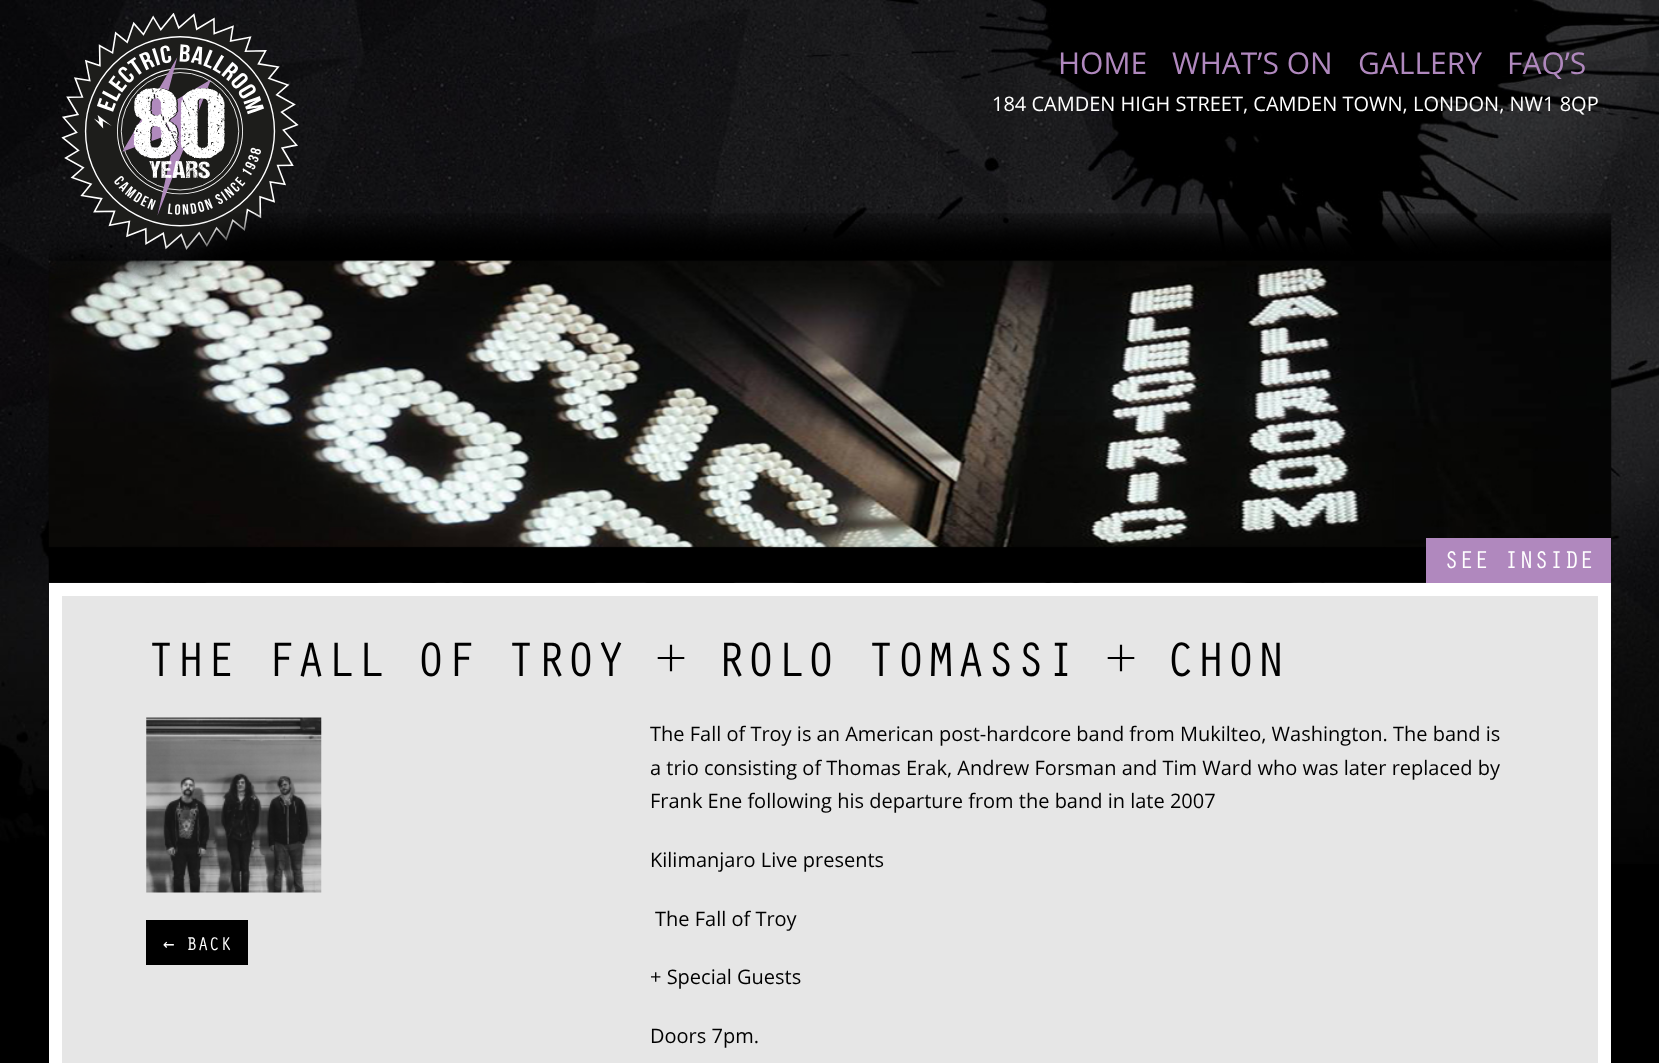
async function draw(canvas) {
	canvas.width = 1659;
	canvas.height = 1063;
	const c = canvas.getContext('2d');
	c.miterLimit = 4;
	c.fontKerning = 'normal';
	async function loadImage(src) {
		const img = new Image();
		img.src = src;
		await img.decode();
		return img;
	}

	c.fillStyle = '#000';
	c.fillRect(0, 0, 1659, 1063);
	c.drawImage(await loadImage('img1.png'), 0, 0, 1659, 864);
	c.drawImage(await loadImage('img2.png'), 61, 13, 238, 237);
	c.font = '30px Open Sans';
	c.fillStyle = '#b088be';
	for (const [text, x, y] of [
		['HOME', 1058, 74],
		['WHAT’S ON', 1172, 74],
		['GALLERY', 1358, 74],
		['FAQ’S', 1507, 74],
	]) {
		c.fillText(text, x, y);
	}
	c.font = '20px Open Sans';
	c.fillStyle = '#fff';
	c.fillText('184 CAMDEN HIGH STREET, CAMDEN TOWN, LONDON, NW1 8QP', 992, 111);
	c.drawImage(await loadImage('img3.png'), 48, 213, 1564, 370);
	c.fillStyle = '#b088be';
	c.fillRect(1426, 538, 185, 45);
	c.font = '25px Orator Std';
	c.fillStyle = '#fff';
	c.fillText('SEE INSIDE', 1444, 568);
	c.fillStyle = '#e6e6e6';
	c.beginPath();
	c.rect(55.5, 589.5, 1549, 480);
	c.fill();
	c.strokeStyle = '#fff';
	c.lineWidth = 13;
	c.stroke();
	c.font = '50px Orator Std';
	c.fillStyle = '#000';
	c.fillText('THE FALL OF TROY + ROLO TOMASSI + CHON', 146, 676);
	c.drawImage(await loadImage('img4.png'), 146, 717, 176, 176);
	c.fillRect(146, 920, 102, 45);
	c.font = '19px DejaVu Sans Mono';
	c.fillStyle = '#fff';
	c.fillText('←', 163, 950);
	c.font = '19px Orator Std';
	c.fillText('BACK', 186, 950);
	c.font = '20px Open Sans';
	c.fillStyle = '#000';
	for (const [text, x, y] of [
		['The Fall of Troy is an American post-hardcore band from Mukilteo, Washington. The band is', 650, 741],
		['a trio consisting of Thomas Erak, Andrew Forsman and Tim Ward who was later replaced by', 650, 775],
		['Frank Ene following his departure from the band in late 2007', 650, 808],
		['Kilimanjaro Live presents', 650, 867],
		['The Fall of Troy', 655, 926],
		['+ Special Guests', 650, 984],
		['Doors 7pm.', 650, 1043],
	]) {
		c.fillText(text, x, y);
	}
}

draw(document.querySelector('canvas'));
